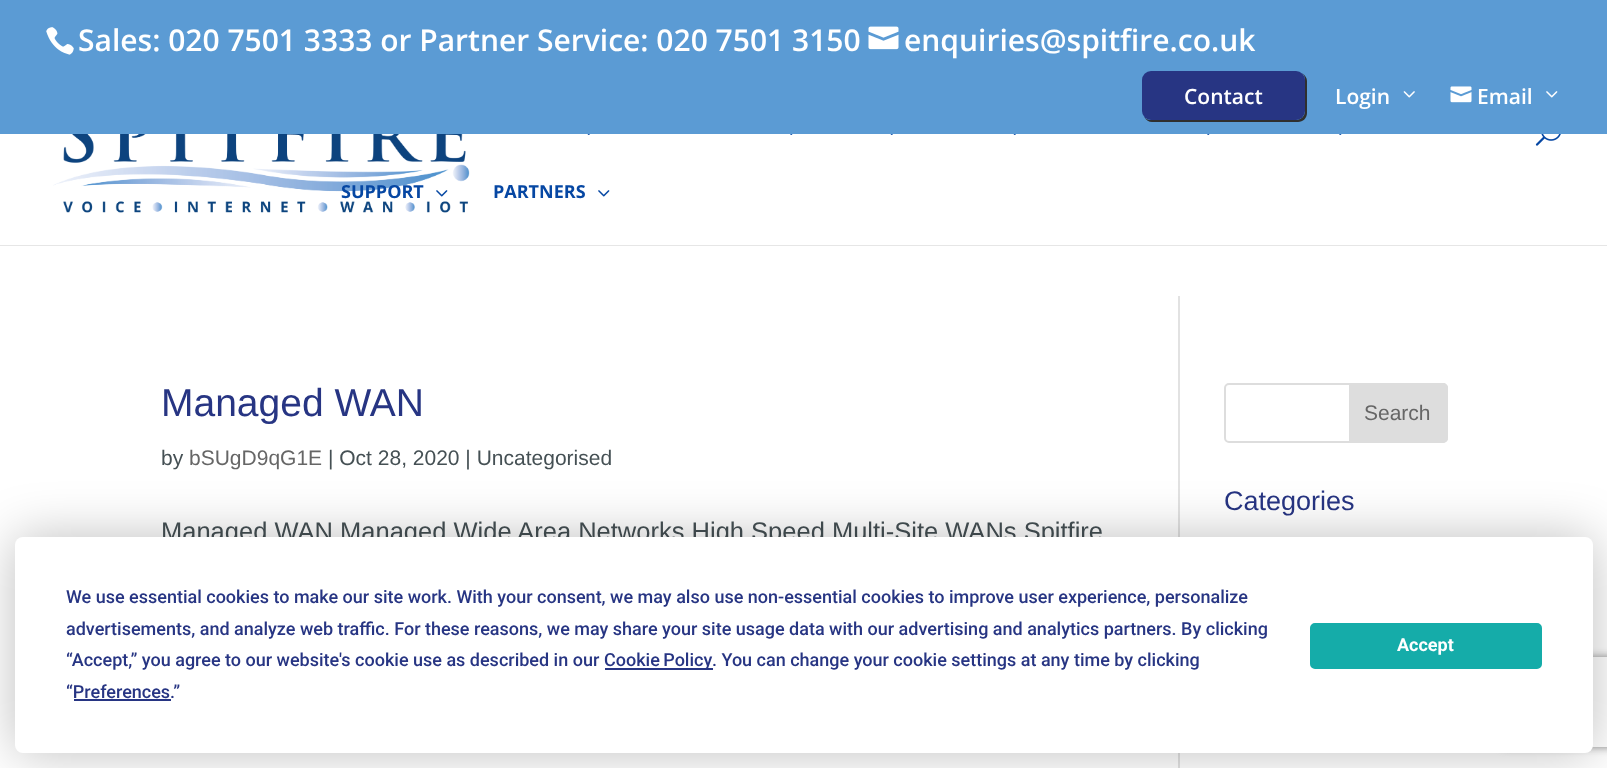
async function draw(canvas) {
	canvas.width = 1607;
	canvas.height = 768;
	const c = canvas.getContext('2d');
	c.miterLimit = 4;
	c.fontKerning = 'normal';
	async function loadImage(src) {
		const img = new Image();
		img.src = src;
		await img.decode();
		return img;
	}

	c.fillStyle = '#fff';
	c.fillRect(0, 0, 1607, 768);
	c.fillStyle = '#5b9bd4';
	c.fillRect(0, 0, 1607, 134);
	c.drawImage(await loadImage('img1.png'), 46, 27, 28, 28);
	c.font = '600 30px Open Sans';
	c.fillStyle = '#fff';
	c.fillText('Sales: 020 7501 3333 or Partner Service: 020 7501 3150', 78, 51);
	c.drawImage(await loadImage('img2.png'), 868, 26, 31, 24);
	c.fillText('enquiries@spitfire.co.uk', 904, 51);
	c.fillStyle = '#2f2f2f';
	c.beginPath();
	c.moveTo(1144, 117);
	c.bezierCurveTo(1146, 120, 1149, 122, 1152, 122);
	c.lineTo(1298, 122);
	c.bezierCurveTo(1303, 122, 1307, 118, 1307, 113);
	c.lineTo(1307, 81);
	c.bezierCurveTo(1307, 78, 1305, 75, 1302, 73);
	c.bezierCurveTo(1304, 75, 1305, 77, 1305, 80);
	c.lineTo(1305, 111);
	c.bezierCurveTo(1305, 116, 1301, 120, 1296, 120);
	c.lineTo(1150, 120);
	c.bezierCurveTo(1148, 120, 1146, 119, 1144, 117);
	c.closePath();
	c.fill();
	c.fillStyle = '#273583';
	c.beginPath();
	c.roundRect(1142, 71, 163, 49, 9);
	c.fill();
	c.font = '600 21px Open Sans';
	c.fillStyle = '#fff';
	c.fillText('Contact', 1184, 104);
	c.fillText('Login', 1335, 104);
	c.drawImage(await loadImage('img3.png'), 1403, 91, 12, 7);
	c.drawImage(await loadImage('img4.png'), 1450, 86, 22, 17);
	c.fillText('Email', 1477, 104);
	c.drawImage(await loadImage('img5.png'), 1546, 91, 12, 7);
	c.fillStyle = '#e6e6e6';
	c.fillRect(0, 245, 1607, 1);
	c.drawImage(await loadImage('img6.png'), 53, 134, 417, 79);
	c.drawImage(await loadImage('img7.png'), 1535, 134, 26, 12);
	c.drawImage(await loadImage('img8.png'), 587, 134, 3, 1);
	c.drawImage(await loadImage('img9.png'), 790, 134, 3, 1);
	c.drawImage(await loadImage('img8.png'), 890, 134, 3, 1);
	c.drawImage(await loadImage('img8.png'), 1013, 134, 3, 1);
	c.drawImage(await loadImage('img9.png'), 1207, 134, 3, 1);
	c.drawImage(await loadImage('img9.png'), 1339, 134, 3, 1);
	c.font = 'bold 18px Open Sans';
	c.fillStyle = '#0647a3';
	c.fillText('SUPPORT', 341, 198);
	c.drawImage(await loadImage('img10.png'), 436, 190, 12, 7);
	c.fillText('PARTNERS', 493, 198);
	c.drawImage(await loadImage('img10.png'), 598, 190, 12, 7);
	c.fillStyle = '#e2e2e2';
	c.fillRect(1178, 296, 2, 472);
	c.font = '39px Liberation Sans';
	c.fillStyle = '#273583';
	c.fillText('Managed WAN', 161, 416);
	c.font = '21px Liberation Sans';
	c.fillStyle = '#455054';
	c.fillText('by', 161, 465);
	c.fillStyle = '#666';
	c.fillText('bSUgD9qG1E', 189, 465);
	c.fillStyle = '#455054';
	c.fillText('| Oct 28, 2020 | Uncategorised', 328, 465);
	c.font = '25.5px Liberation Sans';
	c.fillText('Managed WAN Managed Wide Area Networks High Speed Multi-Site WANs Spitfire', 161, 540);
	c.beginPath();
	c.roundRect(1225, 384, 222, 58, 4);
	c.strokeStyle = '#ddd';
	c.lineWidth = 2;
	c.stroke();
	c.fillStyle = '#ddd';
	c.beginPath();
	c.roundRect(1350, 384, 97, 58, [0, 4, 4, 0]);
	c.fill();
	c.stroke();
	c.font = '21px Liberation Sans';
	c.fillStyle = '#666';
	c.fillText('Search', 1364, 420);
	c.font = '27px Liberation Sans';
	c.fillStyle = '#273583';
	c.fillText('Categories', 1224, 510);
	c.fillStyle = '#00000040';
	c.filter = 'blur(26px)';
	c.beginPath();
	c.roundRect(15, 537, 1578, 216, 8);
	c.fill();
	c.filter = 'none';
	c.save();
	c.beginPath();
	c.moveTo(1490, 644);
	c.lineTo(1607, 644);
	c.lineTo(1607, 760);
	c.lineTo(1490, 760);
	c.closePath();
	c.moveTo(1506, 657);
	c.lineTo(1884, 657);
	c.bezierCurveTo(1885.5, 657, 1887, 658.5, 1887, 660);
	c.lineTo(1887, 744);
	c.bezierCurveTo(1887, 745.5, 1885.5, 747, 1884, 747);
	c.lineTo(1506, 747);
	c.bezierCurveTo(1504.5, 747, 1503, 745.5, 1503, 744);
	c.lineTo(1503, 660);
	c.bezierCurveTo(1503, 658.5, 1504.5, 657, 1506, 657);
	c.closePath();
	c.clip('evenodd');
	c.fillStyle = '#808080';
	c.filter = 'blur(4px)';
	c.beginPath();
	c.roundRect(1503, 657, 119, 90, 3);
	c.fill();
	c.filter = 'none';
	c.restore();
	c.fillStyle = '#fff';
	c.beginPath();
	c.roundRect(15, 537, 1578, 216, 8);
	c.fill();
	c.font = '500 18px Roboto';
	c.fillStyle = '#273583';
	for (const [text, x, y] of [
		['We use essential cookies to make our site work. With your consent, we may also use non-essential cookies to improve user experience, personalize', 66, 603],
		['advertisements, and analyze web traffic. For these reasons, we may share your site usage data with our advertising and analytics partners. By clicking', 66, 635],
		['“Accept,” you agree to our website\'s cookie use as described in our', 66, 666],
	]) {
		c.fillText(text, x, y);
	}
	c.fillRect(605, 668, 108, 2);
	c.wordSpacing = '-1px';
	c.fillText('Cookie Policy', 604, 666);
	c.wordSpacing = '0px';
	c.fillText('. You can change your cookie settings at any time by clicking', 712, 666);
	c.fillText('“Preferences.”', 66, 698);
	c.fillRect(74, 699, 97, 2);
	c.fillStyle = '#15aca9';
	c.beginPath();
	c.roundRect(1311, 624, 230, 44, 4);
	c.fill();
	c.strokeStyle = '#15aca9';
	c.stroke();
	c.font = 'bold 18px Roboto';
	c.fillStyle = '#fff';
	c.fillText('Accept', 1397, 651);
}

draw(document.querySelector('canvas'));
